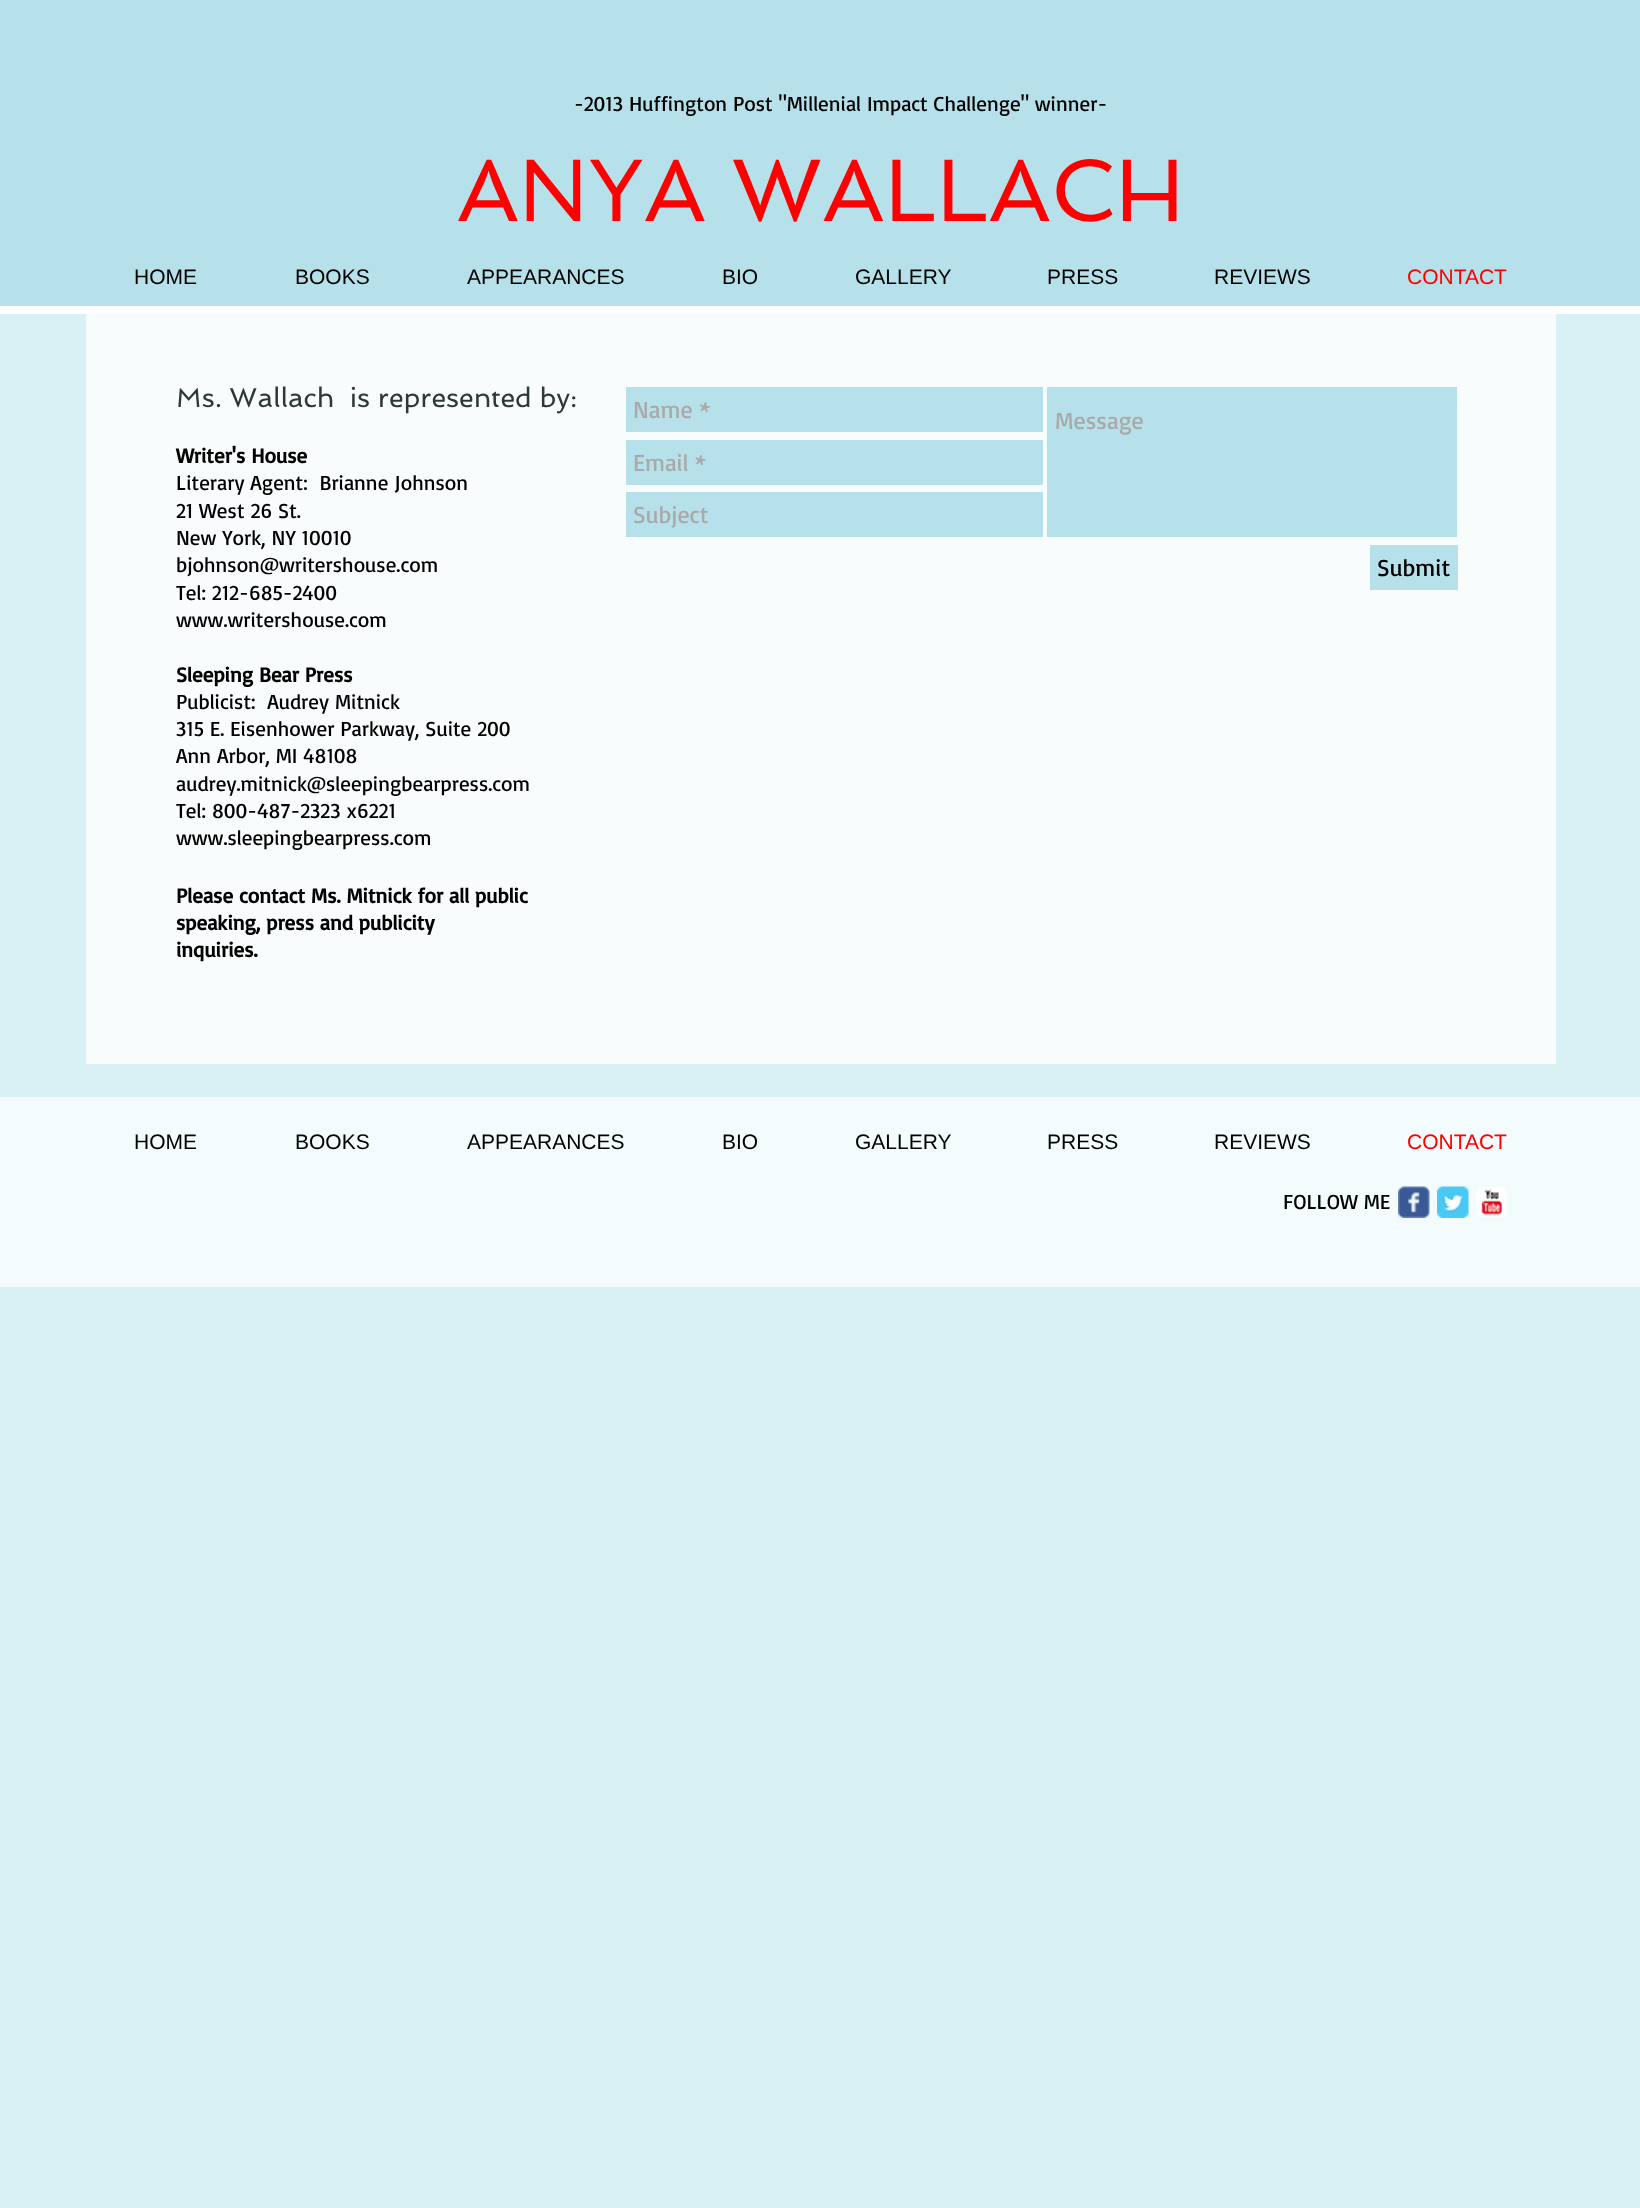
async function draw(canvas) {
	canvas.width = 1640;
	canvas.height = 2208;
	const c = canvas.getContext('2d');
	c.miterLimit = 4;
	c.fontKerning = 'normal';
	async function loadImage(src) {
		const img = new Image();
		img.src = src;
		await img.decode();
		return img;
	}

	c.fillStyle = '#d9f0f4';
	c.fillRect(0, 0, 1640, 2208);
	c.fillStyle = '#b6e1ea';
	c.fillRect(0, 0, 1640, 306);
	c.fillStyle = '#fff';
	c.fillRect(0, 306, 1640, 8);
	c.font = '21px Basic';
	c.fillStyle = '#000';
	c.fillText('-2013 Huffington Post "Millenial Impact Challenge" winner-', 574, 111);
	c.font = '88.5px Spinnaker';
	c.fillStyle = '#f00';
	c.fillText('ANYA WALLACH', 457, 221);
	c.font = '21px Liberation Sans';
	c.fillStyle = '#000';
	for (const [text, x, y] of [
		['HOME', 134, 284],
		['BOOKS', 295, 284],
		['APPEARANCES', 467, 284],
		['BIO', 722, 284],
		['GALLERY', 855, 284],
		['PRESS', 1047, 284],
		['REVIEWS', 1214, 284],
	]) {
		c.fillText(text, x, y);
	}
	c.fillStyle = '#f00';
	c.fillText('CONTACT', 1407, 284);
	c.fillStyle = '#f8fcfc';
	c.fillRect(86, 314, 1470, 750);
	c.font = '27px Spinnaker';
	c.fillStyle = '#2d383a';
	c.fillText('Ms. Wallach  is represented by:', 176, 407);
	c.font = 'bold 21px Basic';
	c.fillStyle = '#000';
	c.fillText('Writer\'s House', 176, 463);
	c.font = '21px Basic';
	for (const [text, x, y] of [
		['Literary Agent:  Brianne Johnson', 176, 490],
		['21 West 26 St.', 176, 518],
		['New York, NY 10010', 176, 545],
		['bjohnson@writershouse.com', 176, 572],
		['Tel: 212-685-2400', 176, 600],
		['www.writershouse.com', 176, 627],
	]) {
		c.fillText(text, x, y);
	}
	c.font = 'bold 21px Basic';
	c.fillText('Sleeping Bear Press', 176, 682);
	c.font = '21px Basic';
	for (const [text, x, y] of [
		['Publicist:  Audrey Mitnick', 176, 709],
		['315 E. Eisenhower Parkway, Suite 200', 176, 736],
		['Ann Arbor, MI 48108', 176, 763],
		['audrey.mitnick@sleepingbearpress.com', 176, 791],
		['Tel:', 176, 818],
		['800-487-2323 x6221', 212, 818],
		['www.sleepingbearpress.com', 176, 845],
	]) {
		c.fillText(text, x, y);
	}
	c.font = 'bold 21px Basic';
	for (const [text, x, y] of [
		['Please contact Ms. Mitnick for all public', 176, 903],
		['speaking, press and publicity', 176, 930],
		['inquiries.', 176, 957],
	]) {
		c.fillText(text, x, y);
	}
	c.fillStyle = '#b6e1ea';
	c.fillRect(626, 387, 417, 45);
	c.font = '24px Basic';
	c.fillStyle = '#a9a9a9';
	c.fillText('Name *', 633, 418);
	c.fillStyle = '#b6e1ea';
	c.fillRect(1047, 387, 410, 150);
	c.fillStyle = '#a9a9a9';
	c.fillText('Message', 1055, 429);
	c.fillStyle = '#b6e1ea';
	c.fillRect(626, 440, 417, 45);
	c.fillStyle = '#a9a9a9';
	c.fillText('Email *', 633, 471);
	c.fillStyle = '#b6e1ea';
	c.fillRect(626, 492, 417, 45);
	c.fillStyle = '#a9a9a9';
	c.fillText('Subject', 633, 523);
	c.fillStyle = '#b6e1ea';
	c.fillRect(1370, 545, 88, 45);
	c.fillStyle = '#000';
	c.fillText('Submit', 1377, 576);
	c.fillStyle = '#f3fbfc';
	c.fillRect(0, 1097, 1640, 190);
	c.font = '21px Liberation Sans';
	c.fillStyle = '#000';
	for (const [text, x, y] of [
		['HOME', 134, 1149],
		['BOOKS', 295, 1149],
		['APPEARANCES', 467, 1149],
		['BIO', 722, 1149],
		['GALLERY', 855, 1149],
		['PRESS', 1047, 1149],
		['REVIEWS', 1214, 1149],
	]) {
		c.fillText(text, x, y);
	}
	c.fillStyle = '#f00';
	c.fillText('CONTACT', 1407, 1149);
	c.font = '21px Basic';
	c.fillStyle = '#000';
	c.fillText('FOLLOW ME', 1283, 1209);
	c.drawImage(await loadImage('img1.png'), 1398, 1186, 32, 32);
	c.drawImage(await loadImage('img2.png'), 1437, 1186, 32, 32);
	c.drawImage(await loadImage('img3.png'), 1476, 1186, 32, 32);
}

draw(document.querySelector('canvas'));
